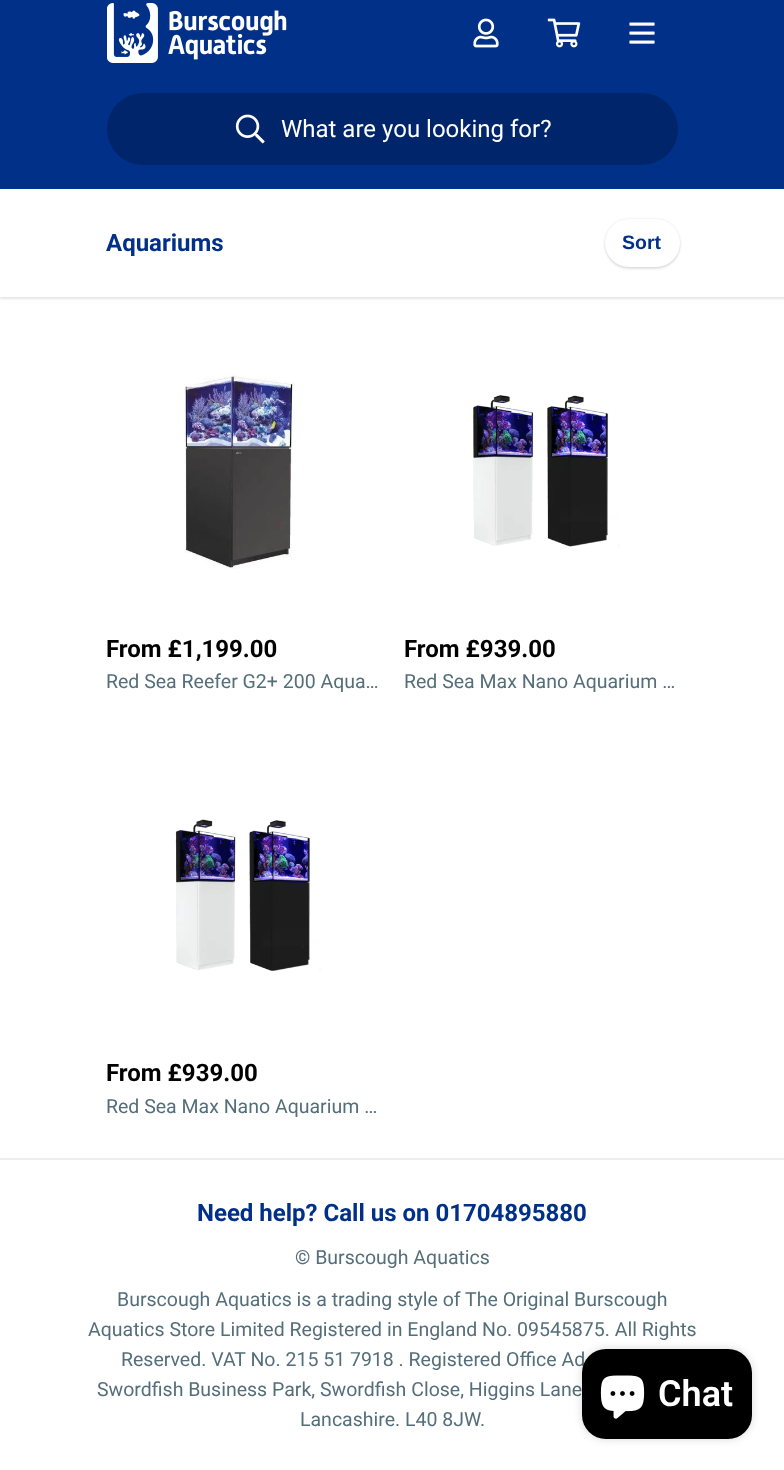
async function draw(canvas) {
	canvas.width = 784;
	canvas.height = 1470;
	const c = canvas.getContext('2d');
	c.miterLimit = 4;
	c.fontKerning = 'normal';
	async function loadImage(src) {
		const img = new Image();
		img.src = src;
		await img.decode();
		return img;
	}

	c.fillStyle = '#fff';
	c.fillRect(0, 0, 784, 1470);
	c.save();
	c.beginPath();
	c.rect(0, 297, 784, 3);
	c.clip();
	c.fillStyle = '#0000001a';
	c.filter = 'blur(1px)';
	c.beginPath();
	c.rect(0, 191, 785, 108);
	c.fill();
	c.filter = 'none';
	c.restore();
	c.fillStyle = '#003087';
	c.fillRect(0, 0, 784, 189);
	c.drawImage(await loadImage('img1.png'), 107, 3, 180, 60);
	c.drawImage(await loadImage('img2.png'), 473, 18, 26, 30);
	c.drawImage(await loadImage('img3.png'), 547, 18, 34, 30);
	c.drawImage(await loadImage('img4.png'), 629, 22, 26, 22);
	c.fillStyle = '#00256a';
	c.beginPath();
	c.roundRect(107, 93, 571, 72, 36);
	c.fill();
	c.drawImage(await loadImage('img5.png'), 235, 114, 30, 30);
	c.font = '24px Roboto';
	c.fillStyle = '#fff';
	c.fillText('What are you looking for?', 281, 137);
	c.font = 'bold 24px Roboto';
	c.fillStyle = '#003087';
	c.fillText('Aquariums', 106, 251);
	c.fillStyle = '#0000001a';
	c.filter = 'blur(1px)';
	c.beginPath();
	c.roundRect(605, 221, 75, 48, 24);
	c.fill();
	c.filter = 'none';
	c.filter = 'blur(1px)';
	c.beginPath();
	c.roundRect(605, 219, 75, 48, 24);
	c.fill();
	c.filter = 'none';
	c.fillStyle = '#fff';
	c.beginPath();
	c.roundRect(605, 219, 75, 48, 24);
	c.fill();
	c.font = 'bold 19.5px Liberation Sans';
	c.fillStyle = '#003087';
	c.fillText('Sort', 622, 249);
	c.drawImage(await loadImage('img6.png'), 184, 374, 111, 195);
	c.font = 'bold 24px Roboto';
	c.fillStyle = '#000';
	c.fillText('From £1,199.00', 106, 657);
	c.font = '19.5px Roboto';
	c.fillStyle = '#546e7a';
	c.fillText('Red Sea Reefer G2+ 200 Aqua…', 106, 688);
	c.drawImage(await loadImage('img7.png'), 473, 395, 147, 152);
	c.font = 'bold 24px Roboto';
	c.fillStyle = '#000';
	c.fillText('From £939.00', 404, 657);
	c.font = '19.5px Roboto';
	c.fillStyle = '#546e7a';
	c.fillText('Red Sea Max Nano Aquarium …', 404, 688);
	c.drawImage(await loadImage('img8.png'), 175, 819, 147, 152);
	c.font = 'bold 24px Roboto';
	c.fillStyle = '#000';
	c.fillText('From £939.00', 106, 1081);
	c.font = '19.5px Roboto';
	c.fillStyle = '#546e7a';
	c.fillText('Red Sea Max Nano Aquarium …', 106, 1113);
	c.fillStyle = '#eceff1';
	c.fillRect(0, 1158, 784, 2);
	c.font = 'bold 24px Roboto';
	c.fillStyle = '#003087';
	c.fillText('Need help? Call us on 01704895880', 197, 1221);
	c.font = '19.5px Roboto';
	c.fillStyle = '#546e7a';
	for (const [text, x, y] of [
		['© Burscough Aquatics', 295, 1264],
		['Burscough Aquatics is a trading style of The Original Burscough', 117, 1306],
		['Aquatics Store Limited Registered in England No. 09545875. All Rights', 88, 1336],
		['Reserved. VAT No. 215 51 7918 . Registered Office Ad', 121, 1366],
		['Swordfish Business Park, Swordfish Close, Higgins Lane', 97, 1396],
		['Lancashire. L40 8JW.', 300, 1426],
	]) {
		c.fillText(text, x, y);
	}
	c.fillStyle = '#00000026';
	c.filter = 'blur(4px)';
	c.beginPath();
	c.roundRect(582, 1349, 170, 90, 24);
	c.fill();
	c.filter = 'none';
	c.fillStyle = '#000';
	c.beginPath();
	c.roundRect(582, 1349, 170, 90, 24);
	c.fill();
	c.drawImage(await loadImage('img9.png'), 600, 1375, 45, 44);
	c.font = '600 36px Roboto';
	c.fillStyle = '#fff';
	c.fillText('Chat', 658, 1406);
}

draw(document.querySelector('canvas'));
